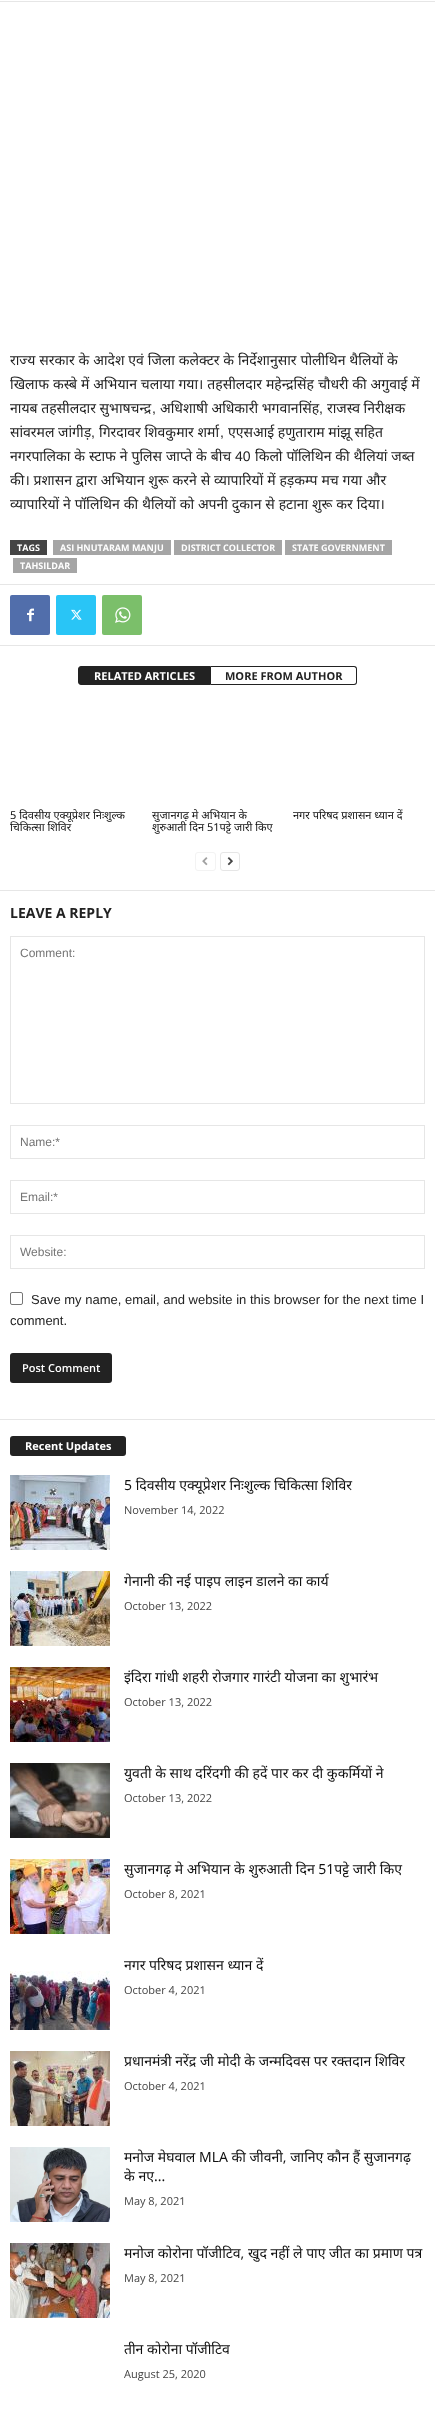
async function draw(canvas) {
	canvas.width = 435;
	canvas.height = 2433;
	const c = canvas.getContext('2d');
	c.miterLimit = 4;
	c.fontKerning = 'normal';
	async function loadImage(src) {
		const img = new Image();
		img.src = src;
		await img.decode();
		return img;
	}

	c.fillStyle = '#fff';
	c.fillRect(0, 0, 435, 2433);
	c.fillStyle = '#e6e6e6';
	c.fillRect(0, 1, 435, 1);
	c.wordSpacing = '0.25px';
	c.font = '14px Noto Sans';
	c.fillStyle = '#222';
	c.fillText('राज्य सरकार के आदेश एवं जिला कलेक्टर के निर्देशानुसार पोलीथिन थैलियों के', 10, 365);
	c.fillText('खिलाफ कस्बे में अभियान चलाया गया। तहसीलदार महेन्द्रसिंह चौधरी की अगुवाई में', 10, 389);
	c.wordSpacing = '0px';
	c.fillText('नायब तहसीलदार सुभाषचन्द्र', 10, 413);
	c.font = '14px Liberation Sans';
	c.fillText(',', 152, 413);
	c.font = '14px Noto Sans';
	c.fillText('अधिशाषी अधिकारी भगवानसिंह', 160, 413);
	c.font = '14px Liberation Sans';
	c.fillText(',', 319, 413);
	c.font = '14px Noto Sans';
	c.fillText('राजस्व निरीक्षक', 327, 413);
	c.fillText('सांवरमल जांगीड़', 10, 437);
	c.font = '14px Liberation Sans';
	c.fillText(',', 91, 437);
	c.font = '14px Noto Sans';
	c.fillText('गिरदावर शिवकुमार शर्मा', 99, 437);
	c.font = '14px Liberation Sans';
	c.fillText(',', 220, 437);
	c.font = '14px Noto Sans';
	c.fillText('एएसआई हणुताराम मांझू सहित', 228, 437);
	c.wordSpacing = '0.25px';
	c.fillText('नगरपालिका के स्टाफ ने पुलिस जाप्ते के बीच', 10, 461);
	c.wordSpacing = '0px';
	c.font = '14px Liberation Sans';
	c.fillText('40', 235, 461);
	c.wordSpacing = '0.25px';
	c.font = '14px Noto Sans';
	for (const [text, x, y] of [
		['किलो पॉलिथिन की थैलियां जब्त', 255, 461],
		['की। प्रशासन द्वारा अभियान शुरू करने से व्यापारियों में हड़कम्प मच गया और', 10, 485],
		['व्यापारियों ने पॉलिथिन की थैलियों को अपनी दुकान से हटाना शुरू कर दिया।', 10, 509],
	]) {
		c.fillText(text, x, y);
	}
	c.fillStyle = '#444';
	c.fillRect(10, 540, 37, 15);
	c.wordSpacing = '0px';
	c.font = 'bold 9px Open Sans';
	c.fillStyle = '#fff';
	c.fillText('TAGS', 17, 551);
	c.fillStyle = '#a5a5a5';
	c.fillRect(53, 540, 118, 15);
	c.fillStyle = '#fff';
	c.fillText('ASI HNUTARAM MANJU', 60, 551);
	c.fillStyle = '#a5a5a5';
	c.fillRect(174, 540, 108, 15);
	c.fillStyle = '#fff';
	c.fillText('DISTRICT COLLECTOR', 181, 551);
	c.fillStyle = '#a5a5a5';
	c.fillRect(285, 540, 107, 15);
	c.fillStyle = '#fff';
	c.fillText('STATE GOVERNMENT', 292, 551);
	c.fillStyle = '#a5a5a5';
	c.fillRect(13, 558, 64, 15);
	c.fillStyle = '#fff';
	c.fillText('TAHSILDAR', 20, 569);
	c.fillStyle = '#e6e6e6';
	c.fillRect(0, 584, 435, 1);
	c.fillStyle = '#516eab';
	c.beginPath();
	c.roundRect(10, 595, 40, 40, 2);
	c.fill();
	c.drawImage(await loadImage('img1.png'), 27, 608, 7, 14);
	c.fillStyle = '#29c5f6';
	c.beginPath();
	c.roundRect(56, 595, 40, 40, 2);
	c.fill();
	c.drawImage(await loadImage('img2.png'), 71, 609, 11, 11);
	c.fillStyle = '#7bbf6a';
	c.beginPath();
	c.roundRect(102, 595, 40, 40, 2);
	c.fill();
	c.drawImage(await loadImage('img3.png'), 115, 607, 16, 16);
	c.fillStyle = '#e6e6e6';
	c.fillRect(0, 645, 435, 1);
	c.fillStyle = '#222';
	c.beginPath();
	c.roundRect(78.5, 666.5, 132, 18, [2.5, 0, 0, 2.5]);
	c.fill();
	c.strokeStyle = '#222';
	c.stroke();
	c.font = 'bold 11px Open Sans';
	c.fillStyle = '#fff';
	c.fillText('RELATED ARTICLES', 94, 680);
	c.fillStyle = '#222';
	c.beginPath();
	c.moveTo(211, 666);
	c.lineTo(354, 666);
	c.bezierCurveTo(356, 666, 357, 667, 357, 669);
	c.lineTo(357, 682);
	c.bezierCurveTo(357, 684, 356, 685, 354, 685);
	c.lineTo(211, 685);
	c.closePath();
	c.moveTo(211, 667);
	c.lineTo(354, 667);
	c.bezierCurveTo(355, 667, 356, 668, 356, 669);
	c.lineTo(356, 682);
	c.bezierCurveTo(356, 683, 355, 684, 354, 684);
	c.lineTo(211, 684);
	c.closePath();
	c.fill('evenodd');
	c.fillText('MORE FROM AUTHOR', 225, 680);
	c.font = '11px Noto Sans';
	c.fillStyle = '#111';
	for (const [text, x, y] of [
		['5 दिवसीय एक्यूप्रेशर निःशुल्क', 10, 819],
		['चिकित्सा शिविर', 10, 831],
		['सुजानगढ़ मे अभियान के', 152, 819],
		['शुरुआती दिन 51पट्टे जारी किए', 152, 831],
		['नगर परिषद प्रशासन ध्यान दें', 293, 819],
	]) {
		c.fillText(text, x, y);
	}
	c.beginPath();
	c.roundRect(195.5, 852.5, 20, 18, 2.5);
	c.strokeStyle = '#f3f3f3';
	c.stroke();
	c.drawImage(await loadImage('img4.png'), 202, 857, 6, 9);
	c.beginPath();
	c.roundRect(220.5, 852.5, 19, 18, 2.5);
	c.strokeStyle = '#e6e6e6';
	c.stroke();
	c.drawImage(await loadImage('img5.png'), 227, 857, 6, 9);
	c.fillStyle = '#e6e6e6';
	c.fillRect(0, 890, 435, 1);
	c.font = 'bold 14px Open Sans';
	c.fillStyle = '#222';
	c.fillText('LEAVE A REPLY', 10, 918);
	c.strokeRect(10.5, 936.5, 414, 167);
	c.font = '12px Liberation Sans';
	c.fillStyle = '#757575';
	c.fillText('Comment:', 20, 957);
	c.strokeRect(10.5, 1125.5, 414, 33);
	c.fillText('Name:*', 20, 1146);
	c.strokeRect(10.5, 1180.5, 414, 33);
	c.fillText('Email:*', 20, 1201);
	c.strokeRect(10.5, 1235.5, 414, 33);
	c.fillText('Website:', 20, 1256);
	c.beginPath();
	c.roundRect(10.5, 1292.5, 12, 12, 1.5);
	c.strokeStyle = '#767676';
	c.stroke();
	c.font = '13px Liberation Sans';
	c.fillStyle = '#222';
	c.fillText('Save my name, email, and website in this browser for the next time I', 31, 1304);
	c.fillText('comment.', 10, 1325);
	c.beginPath();
	c.roundRect(10, 1353, 102, 30, 3);
	c.fill();
	c.font = '600 11px Open Sans';
	c.fillStyle = '#fff';
	c.fillText('Post Comment', 22, 1372);
	c.fillStyle = '#e6e6e6';
	c.fillRect(0, 1419, 435, 1);
	c.fillStyle = '#222';
	c.beginPath();
	c.roundRect(10, 1436, 116, 20, 3);
	c.fill();
	c.font = 'bold 11px Open Sans';
	c.fillStyle = '#fff';
	c.fillText('Recent Updates', 25, 1450);
	c.drawImage(await loadImage('img6.png'), 10, 1475, 100, 75);
	c.font = '14px Noto Sans';
	c.fillStyle = '#111';
	c.fillText('5 दिवसीय एक्यूप्रेशर निःशुल्क चिकित्सा शिविर', 124, 1490);
	c.font = '11px Open Sans';
	c.fillStyle = '#444';
	c.fillText('November 14, 2022', 124, 1514);
	c.drawImage(await loadImage('img7.png'), 10, 1571, 100, 75);
	c.font = '14px Noto Sans';
	c.fillStyle = '#111';
	c.fillText('गेनानी की नई पाइप लाइन डालने का कार्य', 124, 1586);
	c.font = '11px Open Sans';
	c.fillStyle = '#444';
	c.fillText('October 13, 2022', 124, 1610);
	c.drawImage(await loadImage('img8.png'), 10, 1667, 100, 75);
	c.font = '14px Noto Sans';
	c.fillStyle = '#111';
	c.fillText('इंदिरा गांधी शहरी रोजगार गारंटी योजना का शुभारंभ', 124, 1682);
	c.font = '11px Open Sans';
	c.fillStyle = '#444';
	c.fillText('October 13, 2022', 124, 1706);
	c.drawImage(await loadImage('img9.png'), 10, 1763, 100, 75);
	c.font = '14px Noto Sans';
	c.fillStyle = '#111';
	c.fillText('युवती के साथ दरिंदगी की हदें पार कर दी कुकर्मियों ने', 124, 1778);
	c.font = '11px Open Sans';
	c.fillStyle = '#444';
	c.fillText('October 13, 2022', 124, 1802);
	c.drawImage(await loadImage('img10.png'), 10, 1859, 100, 75);
	c.font = '14px Noto Sans';
	c.fillStyle = '#111';
	c.fillText('सुजानगढ़ मे अभियान के शुरुआती दिन 51पट्टे जारी किए', 124, 1874);
	c.font = '11px Open Sans';
	c.fillStyle = '#444';
	c.fillText('October 8, 2021', 124, 1898);
	c.drawImage(await loadImage('img11.png'), 10, 1971, 100, 59);
	c.font = '14px Noto Sans';
	c.fillStyle = '#111';
	c.fillText('नगर परिषद प्रशासन ध्यान दें', 124, 1970);
	c.font = '11px Open Sans';
	c.fillStyle = '#444';
	c.fillText('October 4, 2021', 124, 1994);
	c.drawImage(await loadImage('img12.png'), 10, 2051, 100, 75);
	c.font = '14px Noto Sans';
	c.fillStyle = '#111';
	c.fillText('प्रधानमंत्री नरेंद्र जी मोदी के जन्मदिवस पर रक्तदान शिविर', 124, 2066);
	c.font = '11px Open Sans';
	c.fillStyle = '#444';
	c.fillText('October 4, 2021', 124, 2090);
	c.drawImage(await loadImage('img13.png'), 10, 2147, 100, 75);
	c.font = '14px Noto Sans';
	c.fillStyle = '#111';
	c.fillText('मनोज मेघवाल MLA की जीवनी, जानिए कौन हैं सुजानगढ़', 124, 2162);
	c.fillText('के नए...', 124, 2181);
	c.font = '11px Open Sans';
	c.fillStyle = '#444';
	c.fillText('May 8, 2021', 124, 2205);
	c.drawImage(await loadImage('img14.png'), 10, 2243, 100, 75);
	c.font = '14px Noto Sans';
	c.fillStyle = '#111';
	c.fillText('मनोज कोरोना पॉजीटिव, खुद नहीं ले पाए जीत का प्रमाण पत्र', 124, 2258);
	c.font = '11px Open Sans';
	c.fillStyle = '#444';
	c.fillText('May 8, 2021', 124, 2282);
	c.font = '14px Noto Sans';
	c.fillStyle = '#111';
	c.fillText('तीन कोरोना पॉजीटिव', 124, 2354);
	c.font = '11px Open Sans';
	c.fillStyle = '#444';
	c.fillText('August 25, 2020', 124, 2378);
}

draw(document.querySelector('canvas'));
